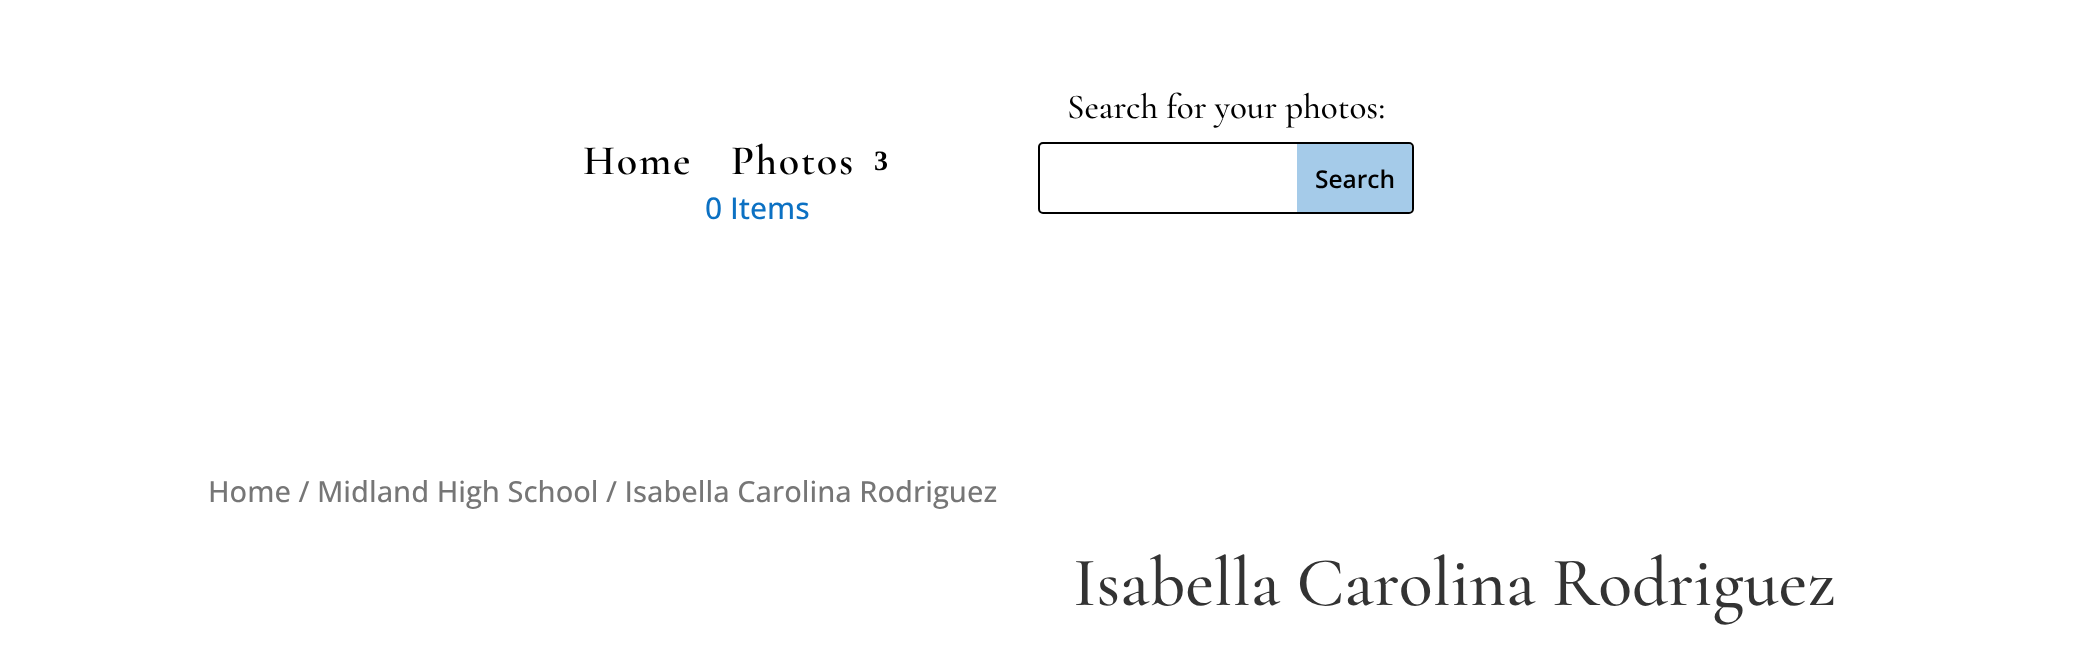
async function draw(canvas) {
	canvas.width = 2079;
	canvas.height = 646;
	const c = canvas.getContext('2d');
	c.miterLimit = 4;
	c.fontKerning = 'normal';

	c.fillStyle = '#fff';
	c.fillRect(0, 0, 2079, 646);
	c.letterSpacing = '1.75px';
	c.font = '600 42px Cormorant Garamond';
	c.fillStyle = '#000';
	c.fillText('Home', 583, 174);
	c.fillText('Photos', 731, 174);
	c.font = 'bold 28px Liberation Serif';
	c.fillText('3', 874, 170);
	c.letterSpacing = '0px';
	c.font = '500 30px Open Sans';
	c.fillStyle = '#0c71c3';
	c.fillText('0 Items', 705, 219);
	c.font = '500 35px Cormorant Garamond';
	c.fillStyle = '#000';
	c.fillText('Search for your photos:', 1067, 118);
	c.beginPath();
	c.roundRect(1039, 143, 374, 70, 4);
	c.strokeStyle = '#000';
	c.lineWidth = 2;
	c.stroke();
	c.fillStyle = '#0c71c35e';
	c.beginPath();
	c.roundRect(1297, 144, 115, 68, [0, 4, 4, 0]);
	c.fill();
	c.font = '600 24.5px Open Sans';
	c.fillStyle = '#000';
	c.fillText('Search', 1315, 188);
	c.font = '500 29px Open Sans';
	c.fillStyle = '#767676';
	c.fillText('Home / Midland High School / Isabella Carolina Rodriguez', 208, 502);
	c.font = '500 70px Cormorant Garamond';
	c.fillStyle = '#333';
	c.fillText('Isabella Carolina Rodriguez', 1073, 605);
}

draw(document.querySelector('canvas'));
